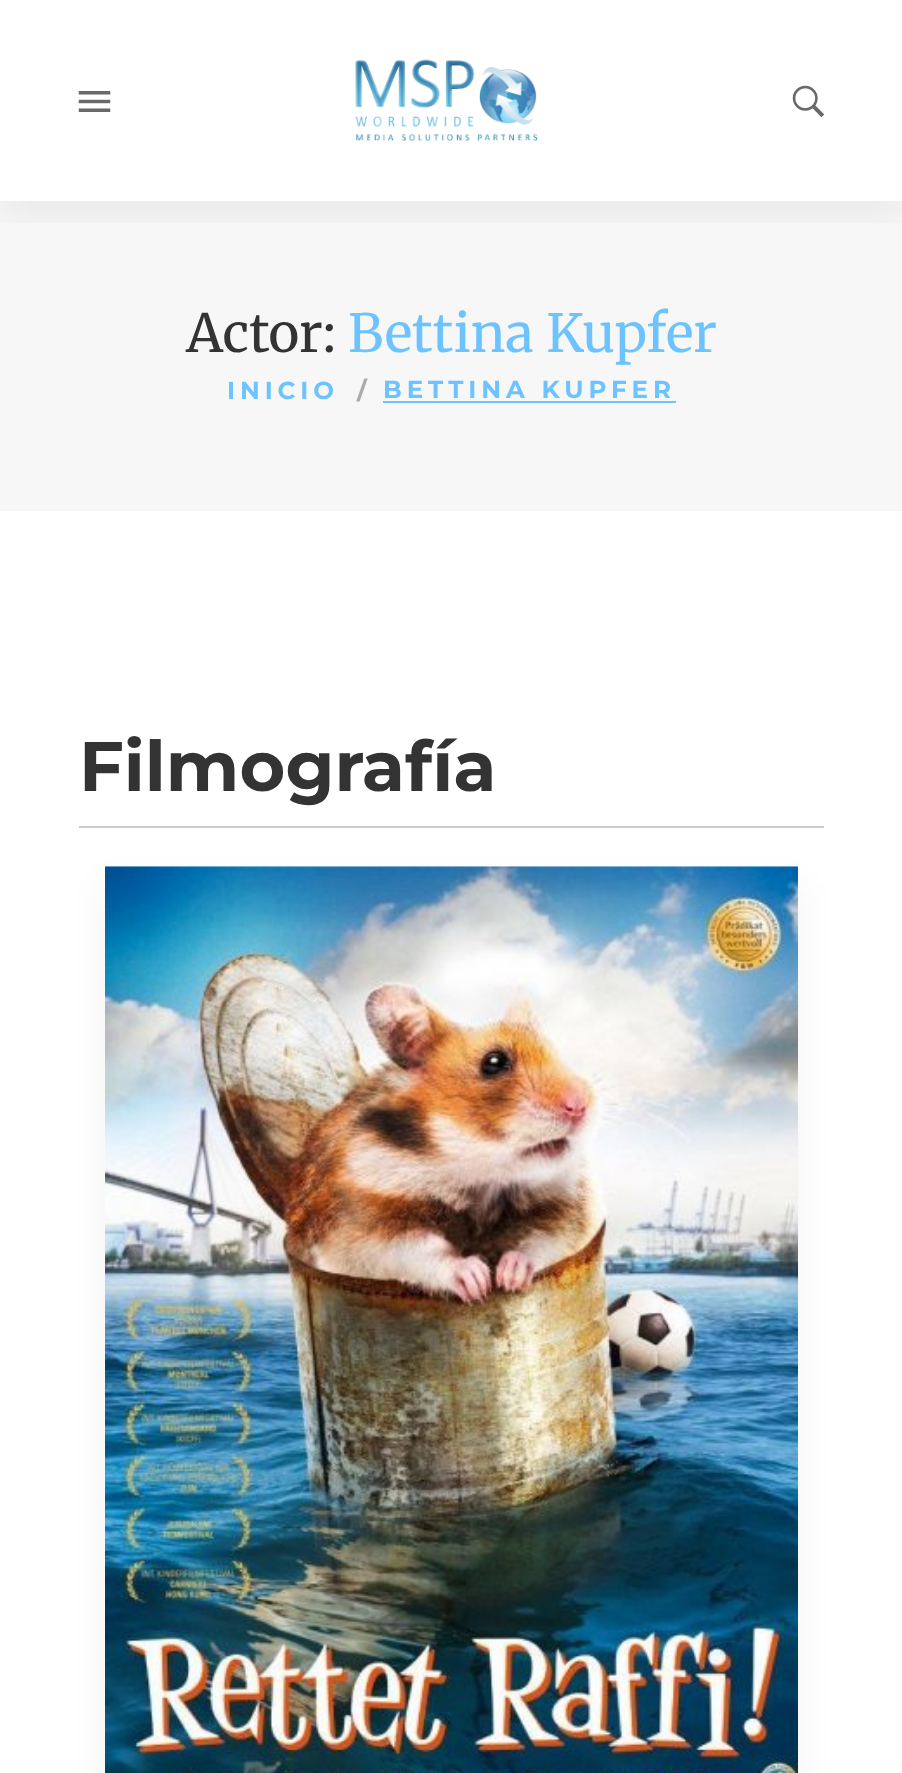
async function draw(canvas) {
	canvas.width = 902;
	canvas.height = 1773;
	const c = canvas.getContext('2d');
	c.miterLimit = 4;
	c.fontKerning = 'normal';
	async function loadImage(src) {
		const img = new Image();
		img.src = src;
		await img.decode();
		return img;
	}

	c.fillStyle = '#fff';
	c.fillRect(0, 0, 902, 1773);
	c.fillStyle = '#f7f7f7';
	c.fillRect(0, 201, 902, 310);
	c.save();
	c.beginPath();
	c.rect(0, 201, 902, 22);
	c.clip();
	c.fillStyle = '#0000000d';
	c.filter = 'blur(17.5px)';
	c.beginPath();
	c.rect(0, 18, 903, 201);
	c.fill();
	c.filter = 'none';
	c.restore();
	c.drawImage(await loadImage('img1.png'), 78, 91, 33, 21);
	c.drawImage(await loadImage('img2.png'), 355, 59, 183, 83);
	c.drawImage(await loadImage('img3.png'), 792, 85, 33, 33);
	c.font = '300 52.5px Merriweather';
	c.fillStyle = '#333';
	c.fillText('Actor:', 186, 352);
	c.fillStyle = '#6cc3ff';
	c.fillText('Bettina Kupfer', 348, 352);
	c.letterSpacing = '4.9px';
	c.font = 'bold 24.5px Montserrat';
	c.fillText('INICIO', 227, 399);
	c.fillStyle = '#ababab';
	c.fillText('/', 357, 399);
	c.fillStyle = '#6cc3ff';
	c.fillRect(383, 401, 293, 2);
	c.fillText('BETTINA KUPFER', 383, 398);
	c.letterSpacing = '0px';
	c.font = 'bold 70px Montserrat';
	c.fillStyle = '#333';
	c.fillText('Filmografía', 79, 791);
	c.fillStyle = '#ccc';
	c.fillRect(79, 826, 745, 2);
	c.fillStyle = '#0000000d';
	c.filter = 'blur(17.5px)';
	c.beginPath();
	c.rect(105, 884, 693, 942);
	c.fill();
	c.filter = 'none';
	c.drawImage(await loadImage('img4.png'), 105, 866, 693, 907);
}

draw(document.querySelector('canvas'));
